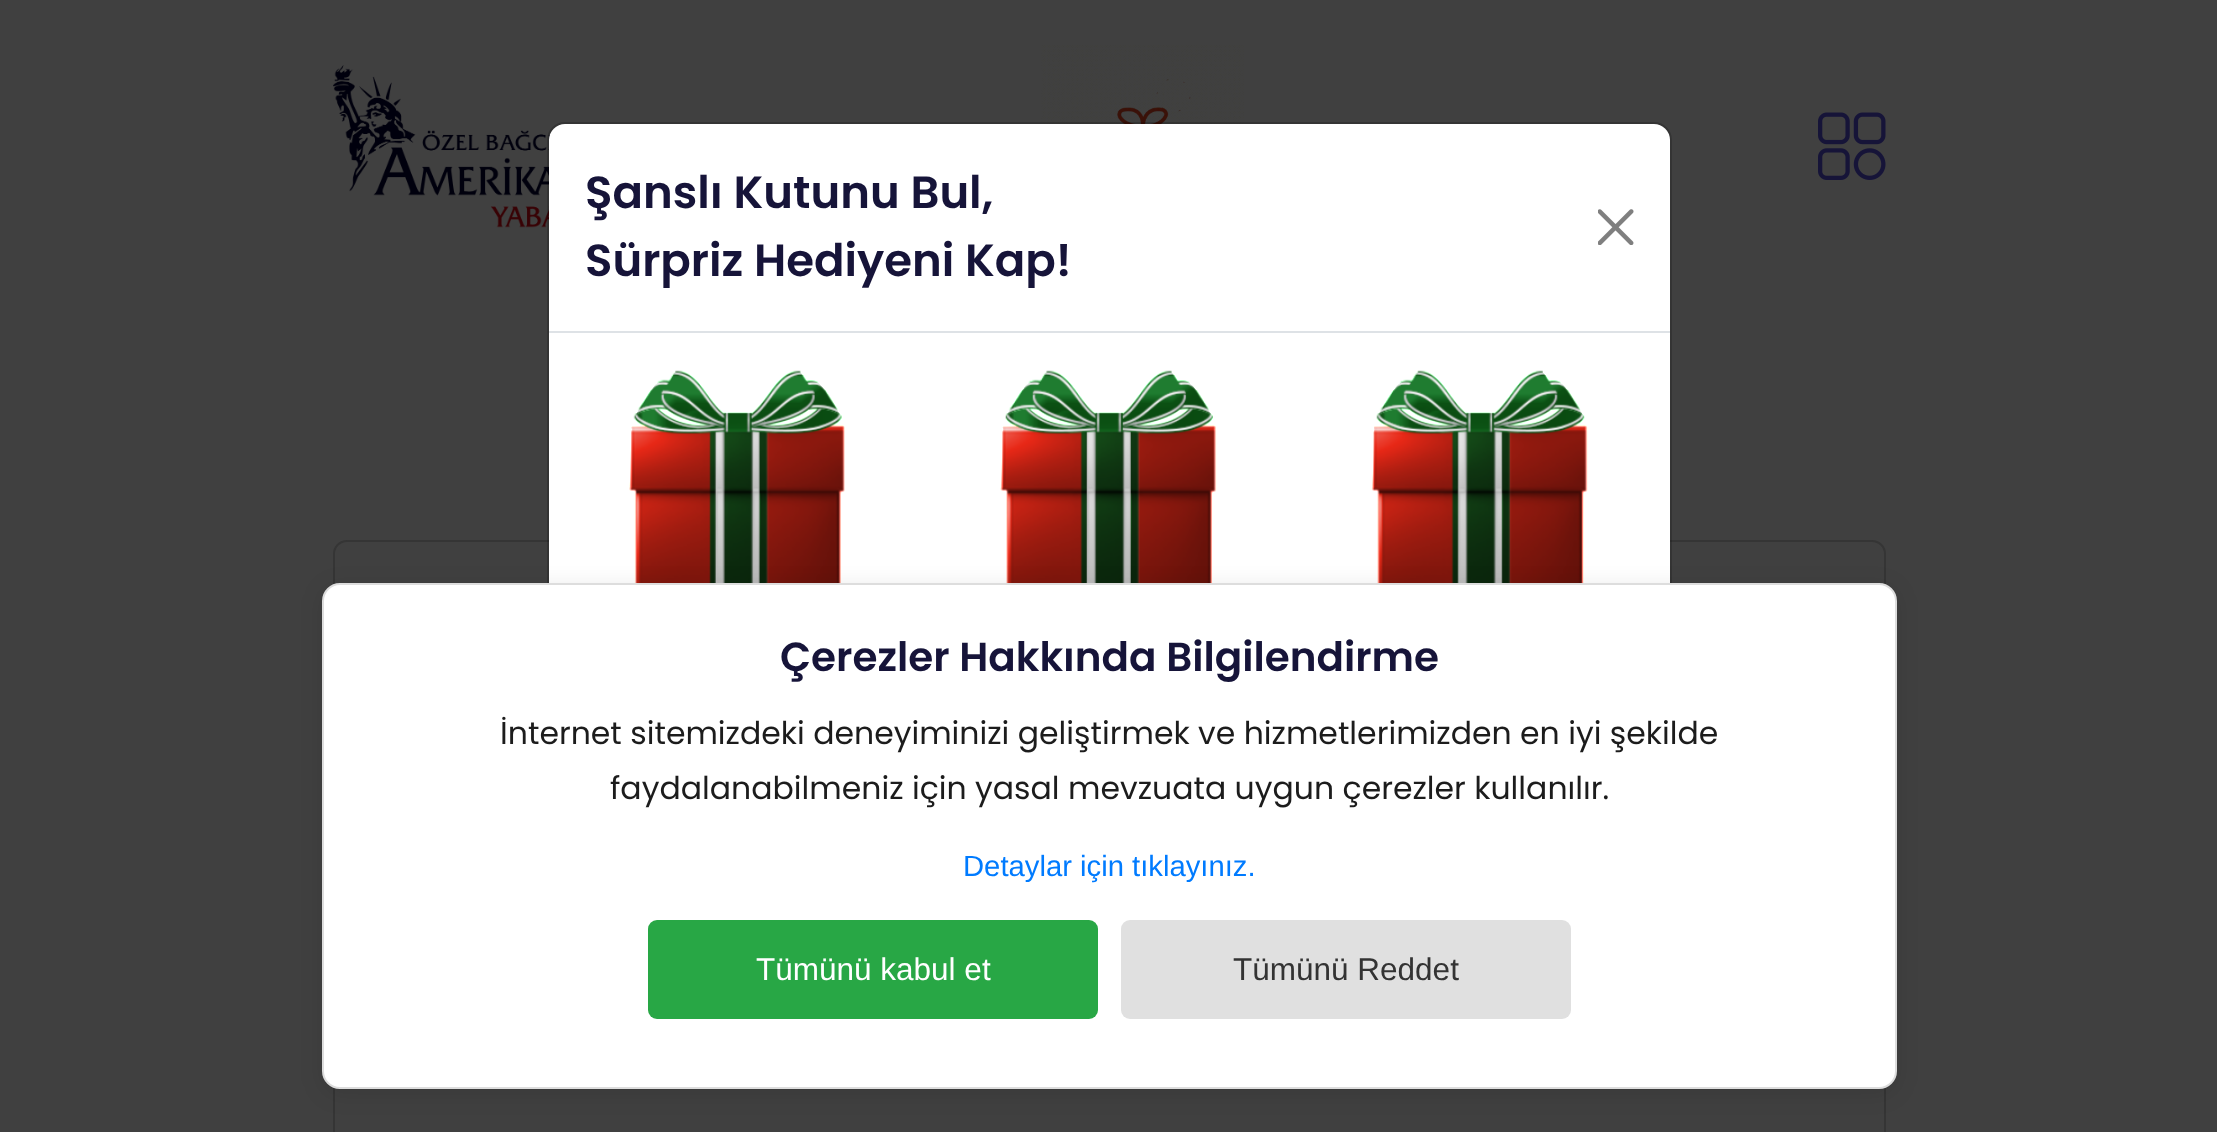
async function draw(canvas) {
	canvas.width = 2217;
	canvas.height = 1132;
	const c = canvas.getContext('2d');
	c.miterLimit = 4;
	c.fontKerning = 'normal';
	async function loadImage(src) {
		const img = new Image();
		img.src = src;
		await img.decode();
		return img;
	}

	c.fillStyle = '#404040';
	c.fillRect(0, 0, 2217, 1132);
	c.drawImage(await loadImage('img1.png'), 333, 65, 218, 163);
	c.drawImage(await loadImage('img2.png'), 1041, 45, 203, 79);
	c.drawImage(await loadImage('img3.png'), 1818, 112, 68, 68);
	c.beginPath();
	c.roundRect(334, 541, 1551, 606, 13);
	c.strokeStyle = '#353535';
	c.lineWidth = 2;
	c.stroke();
	c.fillStyle = '#fff';
	c.beginPath();
	c.roundRect(549, 124, 1121, 889, 16);
	c.fill();
	c.beginPath();
	c.roundRect(548, 123, 1123, 891, 17);
	c.strokeStyle = '#0000002e';
	c.stroke();
	c.fillStyle = '#dee2e6';
	c.fillRect(549, 331, 1121, 2);
	c.font = '600 45px Poppins';
	c.fillStyle = '#161439';
	c.fillText('Şanslı Kutunu Bul,', 585, 208);
	c.fillText('Sürpriz Hediyeni Kap!', 585, 276);
	c.drawImage(await loadImage('img4.png'), 1598, 209, 36, 36);
	c.drawImage(await loadImage('img5.png'), 629, 370, 216, 213);
	c.drawImage(await loadImage('img6.png'), 1000, 370, 217, 213);
	c.drawImage(await loadImage('img7.png'), 1371, 370, 217, 213);
	c.fillStyle = '#0000001a';
	c.filter = 'blur(11px)';
	c.beginPath();
	c.roundRect(322, 587, 1575, 507, 18);
	c.fill();
	c.filter = 'none';
	c.fillStyle = '#fff';
	c.beginPath();
	c.roundRect(323, 584, 1573, 504, 17);
	c.fill();
	c.strokeStyle = '#ddd';
	c.stroke();
	c.font = '600 40.5px Poppins';
	c.fillStyle = '#161439';
	c.fillText('Çerezler Hakkında Bilgilendirme', 780, 671);
	c.font = '31.5px Poppins';
	c.fillStyle = '#1c1c1c';
	c.fillText('İnternet sitemizdeki deneyiminizi geliştirmek ve hizmetlerimizden en iyi şekilde', 500, 744);
	c.fillText('faydalanabilmeniz için yasal mevzuata uygun çerezler kullanılır.', 610, 799);
	c.font = '29.25px Liberation Sans';
	c.fillStyle = '#007bff';
	c.fillText('Detaylar için tıklayınız.', 963, 876);
	c.fillStyle = '#28a745';
	c.beginPath();
	c.roundRect(648, 920, 450, 99, 9);
	c.fill();
	c.font = '31.5px Liberation Sans';
	c.fillStyle = '#fff';
	c.fillText('Tümünü kabul et', 756, 980);
	c.fillStyle = '#e0e0e0';
	c.beginPath();
	c.roundRect(1121, 920, 450, 99, 9);
	c.fill();
	c.fillStyle = '#333';
	c.fillText('Tümünü Reddet', 1233, 980);
}

draw(document.querySelector('canvas'));
